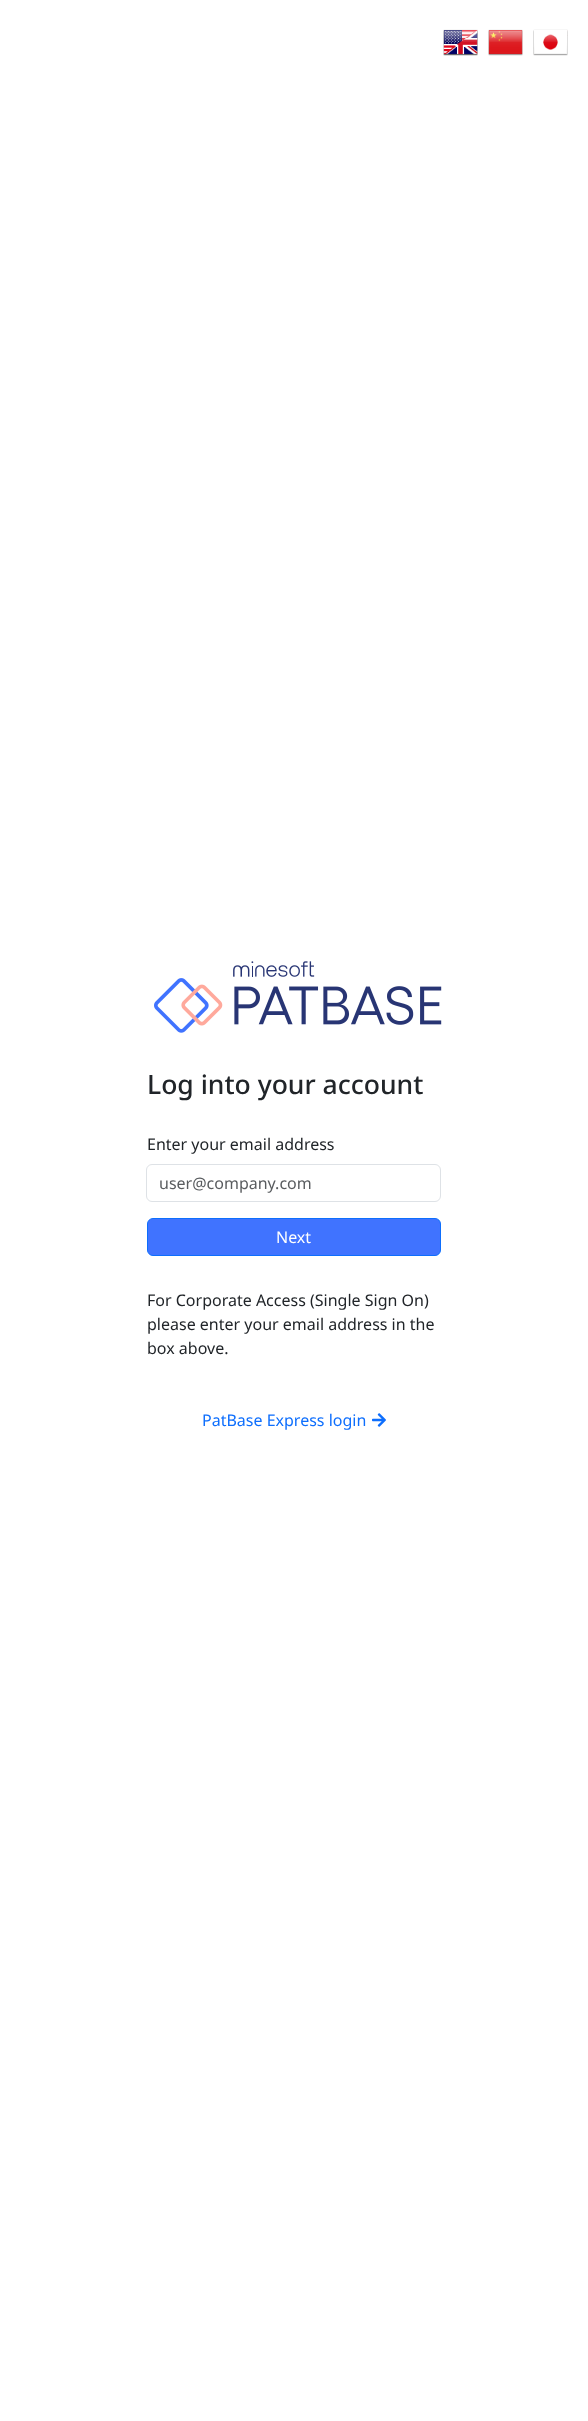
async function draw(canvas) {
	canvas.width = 588;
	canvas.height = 2421;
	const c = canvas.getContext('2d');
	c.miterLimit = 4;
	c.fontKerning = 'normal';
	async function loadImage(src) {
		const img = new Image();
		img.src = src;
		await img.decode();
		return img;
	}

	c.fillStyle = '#fff';
	c.fillRect(0, 0, 588, 2421);
	c.drawImage(await loadImage('img1.png'), 443, 29, 35, 27);
	c.drawImage(await loadImage('img2.png'), 488, 29, 35, 27);
	c.drawImage(await loadImage('img3.png'), 533, 29, 35, 27);
	c.drawImage(await loadImage('img4.png'), 154, 961, 288, 72);
	c.font = '500 26.5px Noto Sans';
	c.fillStyle = '#212529';
	c.fillText('Log into your account', 147, 1094);
	c.font = '16px Noto Sans';
	c.fillText('Enter your email address', 147, 1150);
	c.beginPath();
	c.roundRect(146.5, 1164.5, 294, 37, 5.5);
	c.strokeStyle = '#dee2e6';
	c.stroke();
	c.fillStyle = '#595c5f';
	c.fillText('user@company.com', 159, 1189);
	c.fillStyle = '#4073ff';
	c.beginPath();
	c.roundRect(147.5, 1218.5, 293, 37, 5.5);
	c.fill();
	c.strokeStyle = '#0d6efd';
	c.stroke();
	c.fillStyle = '#fff';
	c.fillText('Next', 276, 1243);
	c.fillStyle = '#212529';
	for (const [text, x, y] of [
		['For Corporate Access (Single Sign On)', 147, 1306],
		['please enter your email address in the', 147, 1330],
		['box above.', 147, 1354],
	]) {
		c.fillText(text, x, y);
	}
	c.fillStyle = '#0d6efd';
	c.fillText('PatBase Express login', 202, 1426);
	c.drawImage(await loadImage('img5.png'), 372, 1413, 14, 14);
}

draw(document.querySelector('canvas'));
